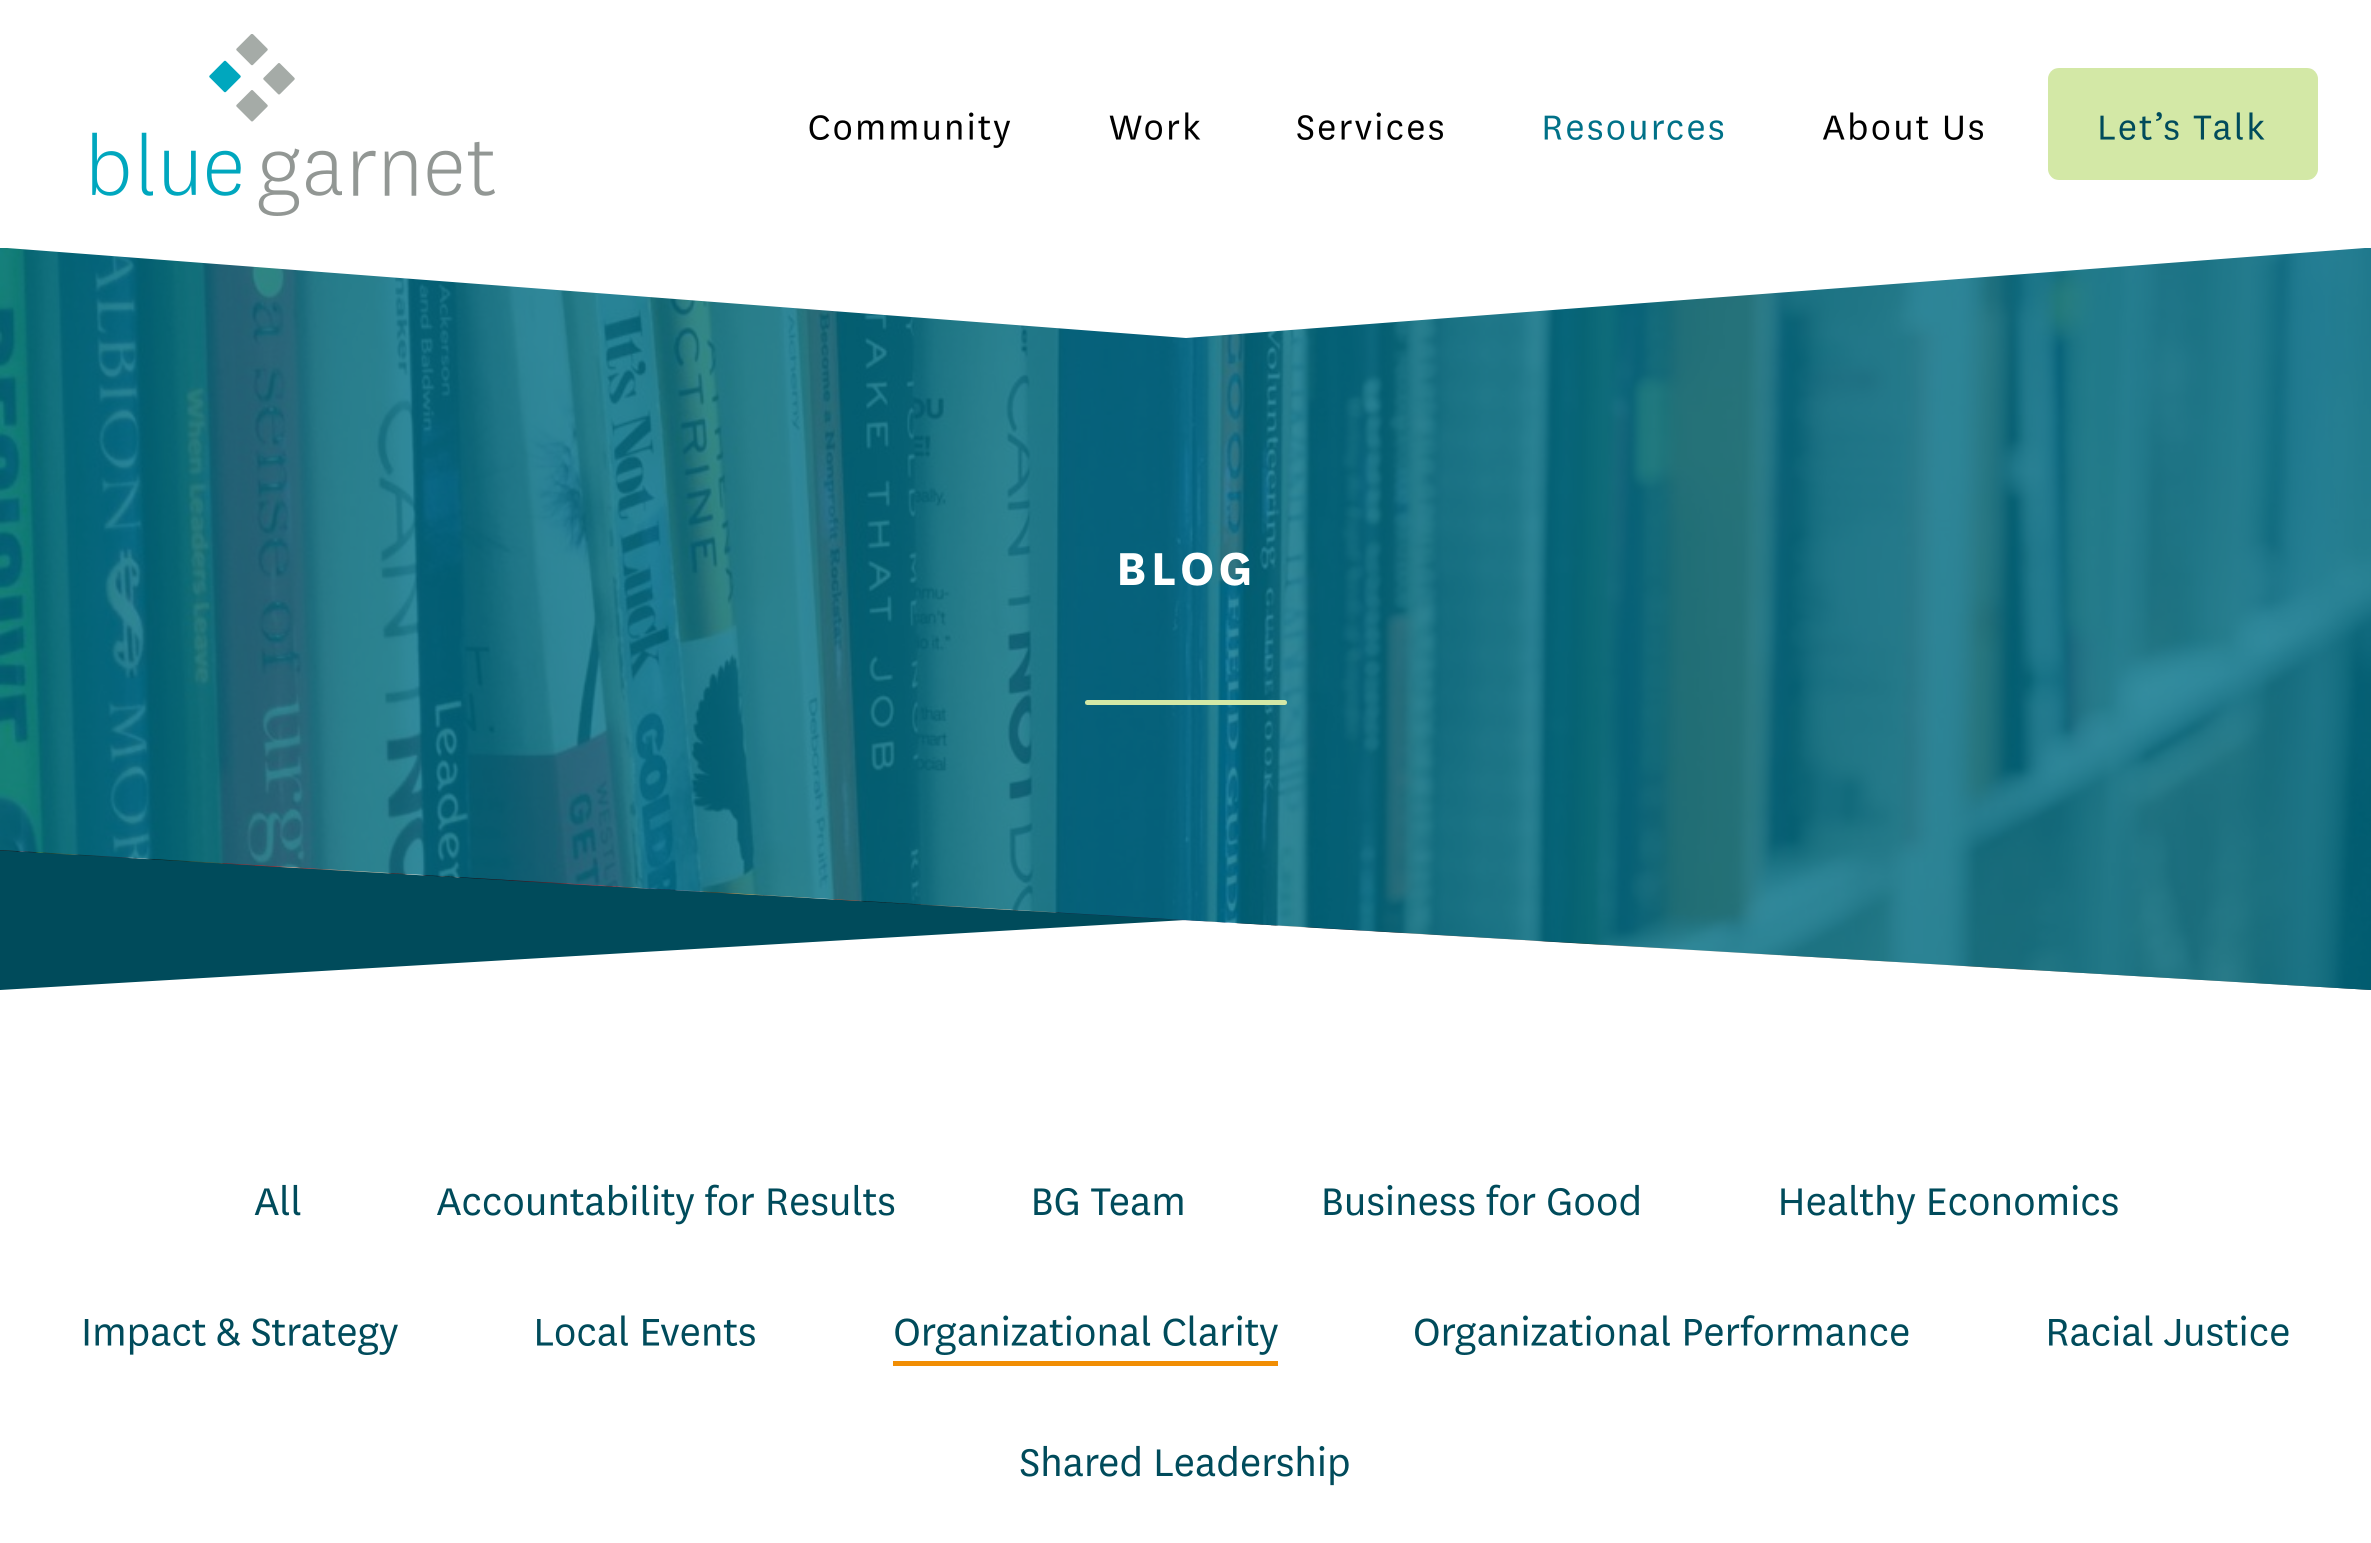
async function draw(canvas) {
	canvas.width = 2371;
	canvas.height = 1543;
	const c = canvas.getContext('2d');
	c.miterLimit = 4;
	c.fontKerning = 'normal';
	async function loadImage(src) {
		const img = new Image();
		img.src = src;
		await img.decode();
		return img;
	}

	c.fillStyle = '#fff';
	c.fillRect(0, 0, 2371, 1543);
	c.drawImage(await loadImage('img1.png'), 92, 34, 403, 182);
	c.drawImage(await loadImage('img2.png'), 809, 112, 202, 36);
	c.drawImage(await loadImage('img3.png'), 1109, 112, 92, 28);
	c.drawImage(await loadImage('img4.png'), 1297, 112, 146, 28);
	c.drawImage(await loadImage('img5.png'), 1544, 115, 180, 25);
	c.drawImage(await loadImage('img6.png'), 1823, 112, 160, 28);
	c.fillStyle = '#d3e8a6';
	c.beginPath();
	c.roundRect(2048, 68, 270, 112, 11);
	c.fill();
	c.drawImage(await loadImage('img7.png'), 2100, 112, 165, 28);
	c.fillStyle = '#004b5b';
	c.beginPath();
	c.moveTo(0, 248);
	c.lineTo(0, 990);
	c.lineTo(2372, 850);
	c.lineTo(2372, 248);
	c.closePath();
	c.fill();
	c.drawImage(await loadImage('img8.png'), 0, 248, 2371, 742);
	c.fillStyle = '#007188cc';
	c.beginPath();
	c.moveTo(0, 248);
	c.lineTo(0, 850);
	c.lineTo(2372, 990);
	c.lineTo(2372, 248);
	c.closePath();
	c.fill();
	c.fillStyle = '#fff';
	c.beginPath();
	c.moveTo(2365, 248);
	c.lineTo(7, 248);
	c.lineTo(1186, 338);
	c.closePath();
	c.fill();
	c.drawImage(await loadImage('img9.png'), 1120, 552, 130, 34);
	c.fillStyle = '#d3e8a6';
	c.beginPath();
	c.roundRect(1085, 700, 202, 5, 2.5);
	c.fill();
	c.drawImage(await loadImage('img10.png'), 254, 1184, 47, 32);
	c.drawImage(await loadImage('img11.png'), 437, 1184, 458, 41);
	c.drawImage(await loadImage('img12.png'), 1034, 1187, 149, 29);
	c.drawImage(await loadImage('img13.png'), 1324, 1184, 315, 32);
	c.drawImage(await loadImage('img14.png'), 1781, 1184, 337, 41);
	c.drawImage(await loadImage('img15.png'), 84, 1318, 314, 37);
	c.drawImage(await loadImage('img16.png'), 537, 1315, 218, 31);
	c.drawImage(await loadImage('img17.png'), 895, 1315, 383, 40);
	c.fillStyle = '#f18e04';
	c.fillRect(893, 1361, 385, 5);
	c.drawImage(await loadImage('img18.png'), 1415, 1315, 494, 40);
	c.drawImage(await loadImage('img19.png'), 2049, 1315, 240, 31);
	c.drawImage(await loadImage('img20.png'), 1020, 1445, 329, 41);
}

draw(document.querySelector('canvas'));
